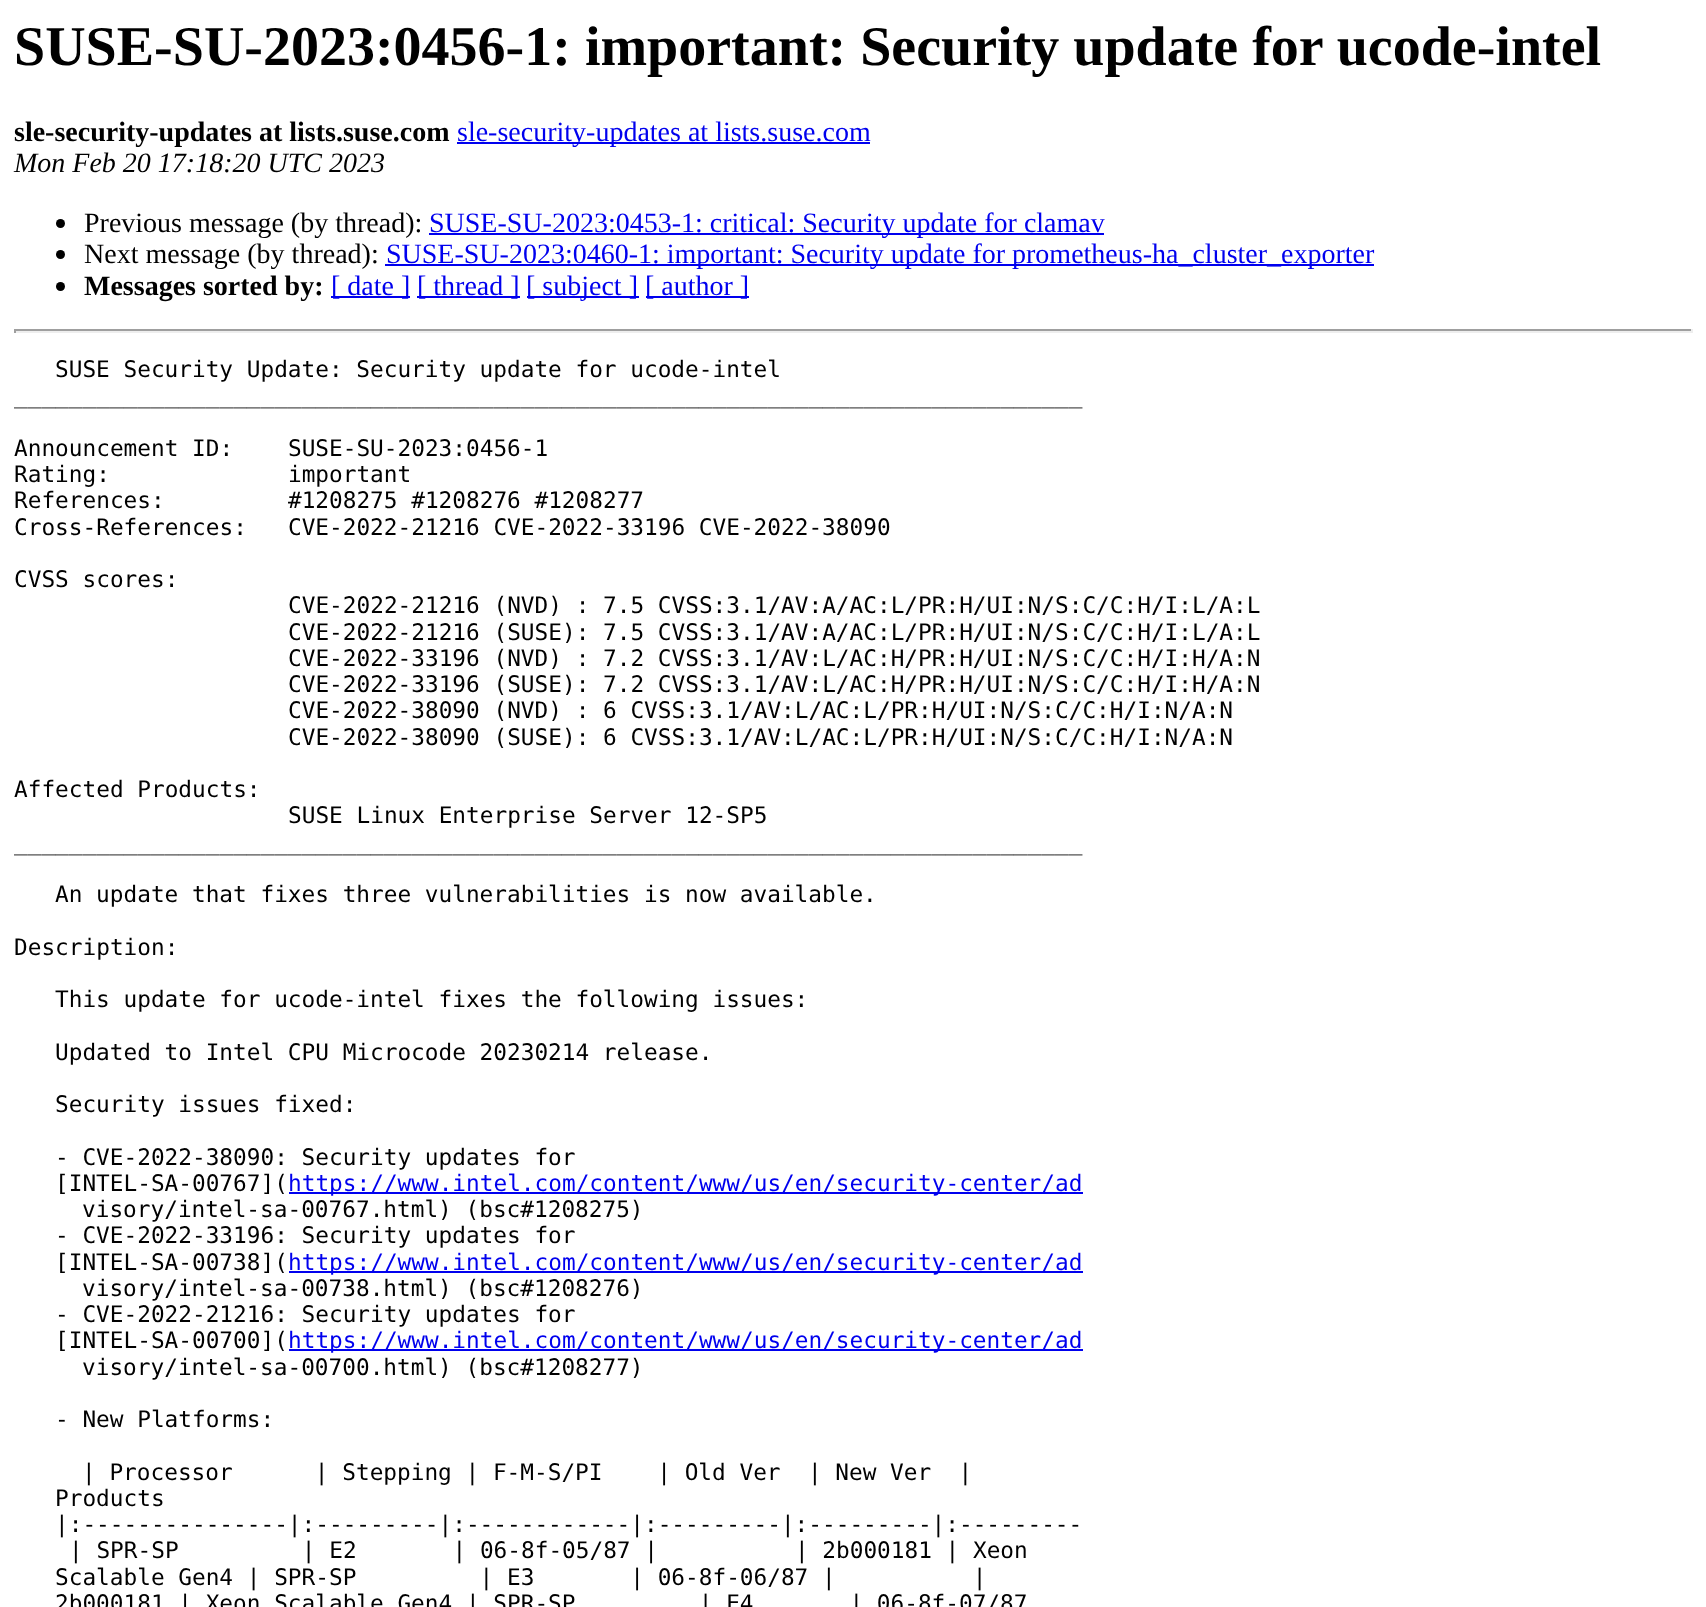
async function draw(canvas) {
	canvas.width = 1706;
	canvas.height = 1607;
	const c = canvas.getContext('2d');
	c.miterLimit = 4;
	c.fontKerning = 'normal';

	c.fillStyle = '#fff';
	c.fillRect(0, 0, 1706, 1607);
	c.font = 'bold 56px Liberation Serif';
	c.fillStyle = '#000';
	c.fillText('SUSE-SU-2023:0456-1: important: Security update for ucode-intel', 14, 65);
	c.font = 'bold 28px Liberation Serif';
	c.fillText('sle-security-updates at lists.suse.com', 14, 141);
	c.fillStyle = '#00e';
	c.fillRect(457, 142, 413, 2);
	c.font = '28px Liberation Serif';
	c.fillText('sle-security-updates at lists.suse.com', 457, 141);
	c.font = 'italic 28px Liberation Serif';
	c.fillStyle = '#000';
	c.fillText('Mon Feb 20 17:18:20 UTC 2023', 14, 172);
	c.beginPath();
	c.arc(60.5, 223.5, 4.5, 0, 2 * Math.PI);
	c.fill();
	c.font = '28px Liberation Serif';
	c.fillText('Previous message (by thread):', 84, 232);
	c.fillStyle = '#00e';
	c.fillRect(429, 233, 675, 2);
	c.fillText('SUSE-SU-2023:0453-1: critical: Security update for clamav', 429, 232);
	c.fillStyle = '#000';
	c.beginPath();
	c.arc(60.5, 254.5, 4.5, 0, 2 * Math.PI);
	c.fill();
	c.fillText('Next message (by thread):', 84, 263);
	c.fillStyle = '#00e';
	c.fillRect(385, 264, 989, 2);
	c.fillText('SUSE-SU-2023:0460-1: important: Security update for prometheus-ha_cluster_exporter', 386, 263);
	c.fillStyle = '#000';
	c.beginPath();
	c.arc(60.5, 286.5, 4.5, 0, 2 * Math.PI);
	c.fill();
	c.font = 'bold 28px Liberation Serif';
	c.fillText('Messages sorted by:', 84, 295);
	c.fillStyle = '#00e';
	c.fillRect(331, 296, 79, 2);
	c.font = '28px Liberation Serif';
	c.fillText('[ date ]', 331, 295);
	c.fillRect(417, 296, 103, 2);
	c.fillText('[ thread ]', 417, 295);
	c.fillRect(527, 296, 112, 2);
	c.fillText('[ subject ]', 526, 295);
	c.fillRect(646, 296, 103, 2);
	c.fillText('[ author ]', 645, 295);
	for (const [x, y, w, h, color] of [
		[14, 329, 1678, 2, '#9f9f9f'],
		[1691, 329, 2, 4, '#eee'],
		[14, 331, 1678, 2, '#eee'],
		[14, 329, 2, 4, '#9f9f9f'],
	]) {
		c.fillStyle = color;
		c.fillRect(x, y, w, h);
	}
	c.font = '22.75px DejaVu Sans Mono';
	c.fillStyle = '#000';
	for (const [text, x, y] of [
		['SUSE Security Update: Security update for ucode-intel', 55, 377],
		['______________________________________________________________________________', 14, 403],
		['Announcement ID:    SUSE-SU-2023:0456-1', 14, 456],
		['Rating:             important', 14, 482],
		['References:         #1208275 #1208276 #1208277', 14, 508],
		['Cross-References:   CVE-2022-21216 CVE-2022-33196 CVE-2022-38090', 14, 535],
		['CVSS scores:', 14, 587],
		['CVE-2022-21216 (NVD) : 7.5 CVSS:3.1/AV:A/AC:L/PR:H/UI:N/S:C/C:H/I:L/A:L', 288, 613],
		['CVE-2022-21216 (SUSE): 7.5 CVSS:3.1/AV:A/AC:L/PR:H/UI:N/S:C/C:H/I:L/A:L', 288, 640],
		['CVE-2022-33196 (NVD) : 7.2 CVSS:3.1/AV:L/AC:H/PR:H/UI:N/S:C/C:H/I:H/A:N', 288, 666],
		['CVE-2022-33196 (SUSE): 7.2 CVSS:3.1/AV:L/AC:H/PR:H/UI:N/S:C/C:H/I:H/A:N', 288, 692],
		['CVE-2022-38090 (NVD) : 6 CVSS:3.1/AV:L/AC:L/PR:H/UI:N/S:C/C:H/I:N/A:N', 288, 718],
		['CVE-2022-38090 (SUSE): 6 CVSS:3.1/AV:L/AC:L/PR:H/UI:N/S:C/C:H/I:N/A:N', 288, 745],
		['Affected Products:', 14, 797],
		['SUSE Linux Enterprise Server 12-SP5', 288, 823],
		['______________________________________________________________________________', 14, 850],
		['An update that fixes three vulnerabilities is now available.', 55, 902],
		['Description:', 14, 955],
		['This update for ucode-intel fixes the following issues:', 55, 1007],
		['Updated to Intel CPU Microcode 20230214 release.', 55, 1060],
		['Security issues fixed:', 55, 1112],
		['- CVE-2022-38090: Security updates for', 55, 1165],
		['[INTEL-SA-00767](', 55, 1191],
	]) {
		c.fillText(text, x, y);
	}
	c.fillStyle = '#00e';
	c.fillRect(289, 1192, 794, 2);
	c.fillText('https://www.intel.com/content/www/us/en/security-center/ad', 288, 1191);
	c.fillStyle = '#000';
	for (const [text, x, y] of [
		['visory/intel-sa-00767.html) (bsc#1208275)', 82, 1217],
		['- CVE-2022-33196: Security updates for', 55, 1243],
		['[INTEL-SA-00738](', 55, 1270],
	]) {
		c.fillText(text, x, y);
	}
	c.fillStyle = '#00e';
	c.fillRect(289, 1271, 794, 2);
	c.fillText('https://www.intel.com/content/www/us/en/security-center/ad', 288, 1270);
	c.fillStyle = '#000';
	for (const [text, x, y] of [
		['visory/intel-sa-00738.html) (bsc#1208276)', 82, 1296],
		['- CVE-2022-21216: Security updates for', 55, 1322],
		['[INTEL-SA-00700](', 55, 1348],
	]) {
		c.fillText(text, x, y);
	}
	c.fillStyle = '#00e';
	c.fillRect(289, 1349, 794, 2);
	c.fillText('https://www.intel.com/content/www/us/en/security-center/ad', 288, 1348);
	c.fillStyle = '#000';
	for (const [text, x, y] of [
		['visory/intel-sa-00700.html) (bsc#1208277)', 82, 1375],
		['- New Platforms:', 55, 1427],
		['| Processor      | Stepping | F-M-S/PI    | Old Ver  | New Ver  |', 82, 1480],
		['Products', 55, 1506],
		['|:---------------|:---------|:------------|:---------|:---------|:---------', 55, 1532],
		['| SPR-SP         | E2       | 06-8f-05/87 |          | 2b000181 | Xeon', 69, 1558],
		['Scalable Gen4 | SPR-SP         | E3       | 06-8f-06/87 |          |', 55, 1585],
		['2b000181 | Xeon Scalable Gen4 | SPR-SP         | E4       | 06-8f-07/87', 55, 1611],
	]) {
		c.fillText(text, x, y);
	}
}

draw(document.querySelector('canvas'));
